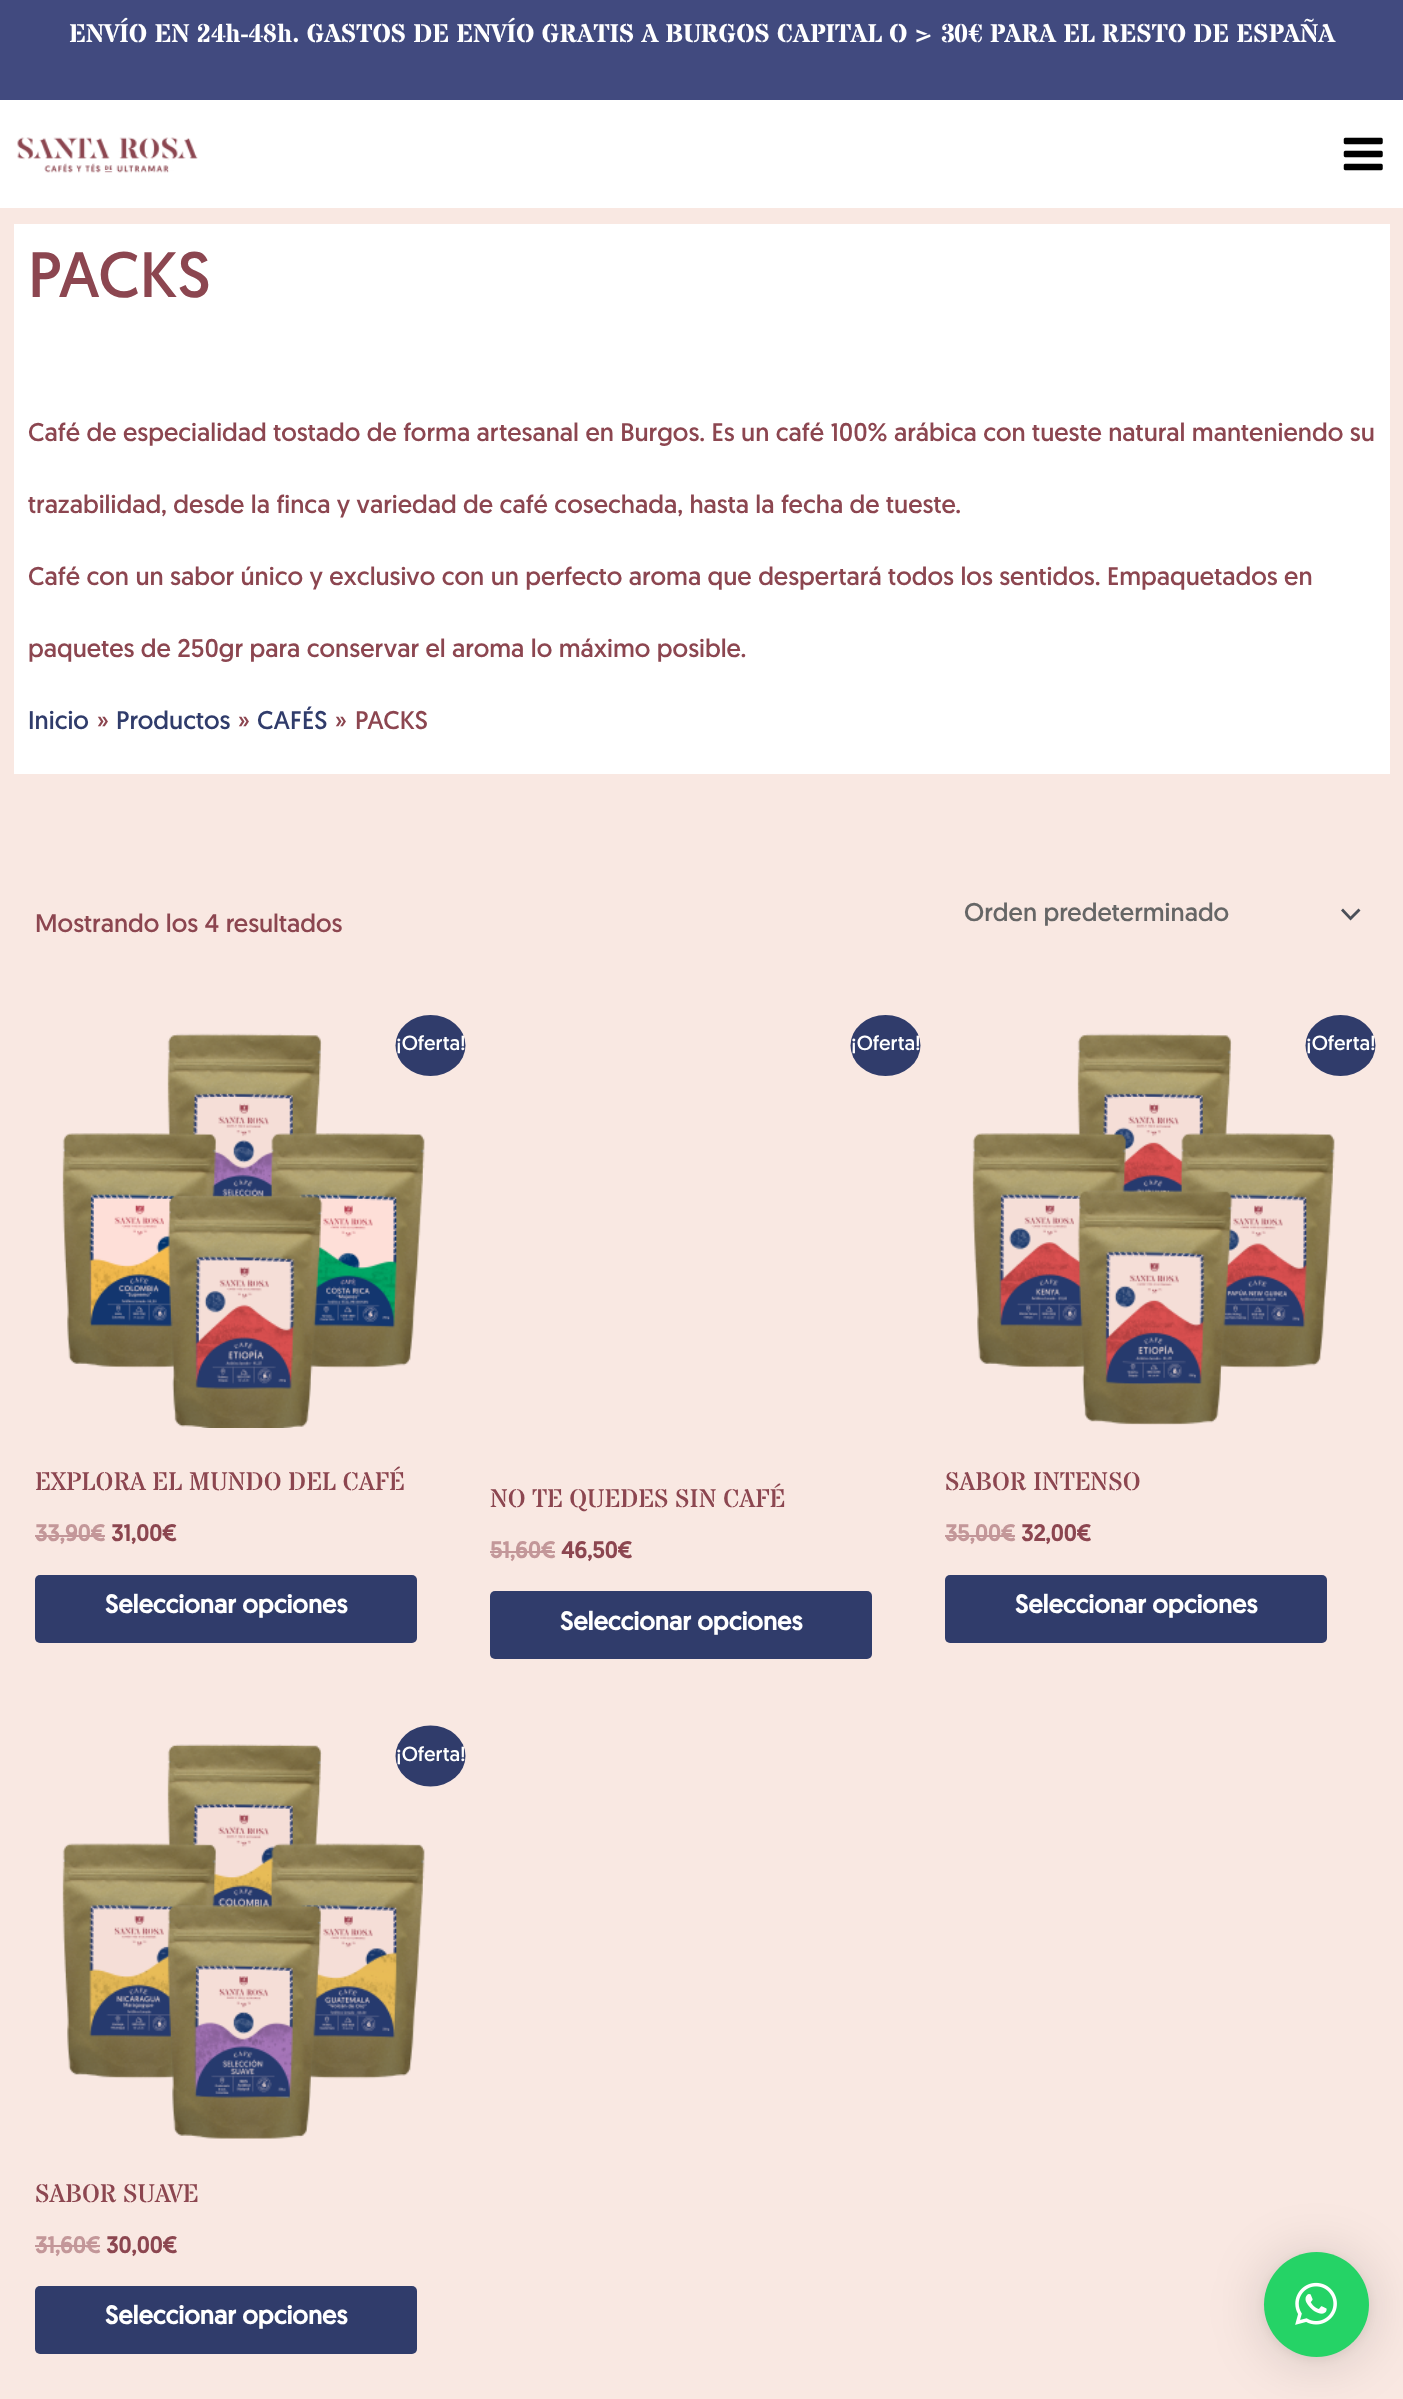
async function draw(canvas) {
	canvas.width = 1403;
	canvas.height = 2399;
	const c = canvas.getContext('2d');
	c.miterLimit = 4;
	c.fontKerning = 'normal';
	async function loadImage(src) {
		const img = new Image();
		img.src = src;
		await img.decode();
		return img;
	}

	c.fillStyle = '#f9e8e2';
	c.fillRect(0, 0, 1403, 2399);
	c.fillStyle = '#414a7f';
	c.fillRect(0, 0, 1403, 100);
	c.font = 'bold 25.65px Stardos Stencil';
	c.fillStyle = '#fff';
	c.fillText('ENVÍO EN 24h-48h. GASTOS DE ENVÍO GRATIS A BURGOS CAPITAL O > 30€ PARA EL RESTO DE ESPAÑA', 69, 42);
	c.fillRect(0, 100, 1403, 108);
	c.drawImage(await loadImage('img1.png'), 17, 137, 181, 36);
	c.drawImage(await loadImage('img2.png'), 1343, 137, 40, 34);
	c.fillRect(14, 224, 1376, 550);
	c.font = '64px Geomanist';
	c.fillStyle = '#8c4650';
	c.fillText('PACKS', 28, 297);
	c.font = '25.55px Geomanist';
	for (const [text, x, y] of [
		['Café de especialidad tostado de forma artesanal en Burgos. Es un café 100% arábica con tueste natural manteniendo su', 28, 441],
		['trazabilidad, desde la finca y variedad de café cosechada, hasta la fecha de tueste.', 28, 513],
		['Café con un sabor único y exclusivo con un perfecto aroma que despertará todos los sentidos. Empaquetados en', 28, 585],
		['paquetes de 250gr para conservar el aroma lo máximo posible.', 28, 657],
	]) {
		c.fillText(text, x, y);
	}
	c.fillStyle = '#303c6b';
	c.fillText('Inicio', 28, 729);
	c.fillStyle = '#8c4650';
	c.fillText('»', 97, 729);
	c.fillStyle = '#303c6b';
	c.fillText('Productos', 116, 729);
	c.fillStyle = '#8c4650';
	c.fillText('»', 238, 729);
	c.fillStyle = '#303c6b';
	c.fillText('CAFÉS', 257, 729);
	c.fillStyle = '#8c4650';
	for (const [text, x, y] of [
		['»', 335, 729],
		['PACKS', 355, 729],
		['Mostrando los 4 resultados', 35, 932],
	]) {
		c.fillText(text, x, y);
	}
	c.fillStyle = '#4b4f58';
	c.beginPath();
	c.moveTo(1341, 910.5);
	c.lineTo(1350.5, 920.5);
	c.lineTo(1360.5, 910.5);
	c.lineTo(1358.5, 908.5);
	c.lineTo(1350.5, 916.5);
	c.lineTo(1343, 908.5);
	c.closePath();
	c.fill();
	c.fillStyle = '#666';
	c.fillText('Orden predeterminado', 964, 921);
	c.drawImage(await loadImage('img3.png'), 62, 1033, 363, 395);
	c.fillStyle = '#303c6b';
	c.beginPath();
	c.ellipse(430.5, 1045.5, 35, 30.5, 0, 0, 2 * Math.PI);
	c.fill();
	c.font = '20.5px Geomanist';
	c.fillStyle = '#fff';
	c.fillText('¡Oferta!', 396, 1050);
	c.font = '25.55px Stardos Stencil';
	c.fillStyle = '#8c4650';
	c.fillText('EXPLORA EL MUNDO DEL CAFÉ', 35, 1490);
	c.font = 'bold 23px Geomanist';
	c.fillStyle = '#c39799';
	c.fillText('33,90€', 35, 1541);
	c.fillRect(35, 1535, 70, 2);
	c.fillStyle = '#8c4650';
	c.fillText('31,00€', 111, 1541);
	c.fillStyle = '#303c6b';
	c.beginPath();
	c.roundRect(35, 1575, 382, 68, 5);
	c.fill();
	c.font = 'bold 25.55px Geomanist';
	c.fillStyle = '#fff';
	c.fillText('Seleccionar opciones', 105, 1613);
	c.fillStyle = '#303c6b';
	c.beginPath();
	c.ellipse(885.5, 1045.5, 35, 30.5, 0, 0, 2 * Math.PI);
	c.fill();
	c.font = '20.5px Geomanist';
	c.fillStyle = '#fff';
	c.fillText('¡Oferta!', 851, 1050);
	c.font = '25.55px Stardos Stencil';
	c.fillStyle = '#8c4650';
	c.fillText('NO TE QUEDES SIN CAFÉ', 490, 1507);
	c.font = 'bold 23px Geomanist';
	c.fillStyle = '#c39799';
	c.fillText('51,60€', 490, 1558);
	c.fillRect(490, 1551, 65, 2);
	c.fillStyle = '#8c4650';
	c.fillText('46,50€', 561, 1558);
	c.fillStyle = '#303c6b';
	c.beginPath();
	c.roundRect(490, 1591, 382, 68, 5);
	c.fill();
	c.font = 'bold 25.55px Geomanist';
	c.fillStyle = '#fff';
	c.fillText('Seleccionar opciones', 560, 1630);
	c.drawImage(await loadImage('img4.png'), 972, 1033, 363, 392);
	c.fillStyle = '#303c6b';
	c.beginPath();
	c.ellipse(1340.5, 1045.5, 35, 30.5, 0, 0, 2 * Math.PI);
	c.fill();
	c.font = '20.5px Geomanist';
	c.fillStyle = '#fff';
	c.fillText('¡Oferta!', 1306, 1050);
	c.font = '25.55px Stardos Stencil';
	c.fillStyle = '#8c4650';
	c.fillText('SABOR INTENSO', 945, 1490);
	c.font = 'bold 23px Geomanist';
	c.fillStyle = '#c39799';
	c.fillText('35,00€', 945, 1541);
	c.fillRect(945, 1535, 70, 2);
	c.fillStyle = '#8c4650';
	c.fillText('32,00€', 1021, 1541);
	c.fillStyle = '#303c6b';
	c.beginPath();
	c.roundRect(945, 1575, 382, 68, 5);
	c.fill();
	c.font = 'bold 25.55px Geomanist';
	c.fillStyle = '#fff';
	c.fillText('Seleccionar opciones', 1015, 1613);
	c.drawImage(await loadImage('img5.png'), 62, 1744, 363, 395);
	c.fillStyle = '#303c6b';
	c.beginPath();
	c.ellipse(430.5, 1756, 35, 30.5, 0, 0, 2 * Math.PI);
	c.fill();
	c.font = '20.5px Geomanist';
	c.fillStyle = '#fff';
	c.fillText('¡Oferta!', 396, 1761);
	c.font = '25.55px Stardos Stencil';
	c.fillStyle = '#8c4650';
	c.fillText('SABOR SUAVE', 35, 2202);
	c.font = 'bold 23px Geomanist';
	c.fillStyle = '#c39799';
	c.fillText('31,60€', 35, 2253);
	c.fillRect(35, 2245, 65, 2);
	c.fillStyle = '#8c4650';
	c.fillText('30,00€', 106, 2253);
	c.fillStyle = '#303c6b';
	c.beginPath();
	c.roundRect(35, 2286, 382, 68, 5);
	c.fill();
	c.font = 'bold 25.55px Geomanist';
	c.fillStyle = '#fff';
	c.fillText('Seleccionar opciones', 105, 2324);
	c.fillStyle = '#00000029';
	c.filter = 'blur(28px)';
	c.beginPath();
	c.roundRect(1264, 2256, 105, 105, 52.5);
	c.fill();
	c.filter = 'none';
	c.fillStyle = '#0000000f';
	c.filter = 'blur(5px)';
	c.beginPath();
	c.roundRect(1264, 2254, 105, 105, 52.5);
	c.fill();
	c.filter = 'none';
	c.fillStyle = '#25d366';
	c.beginPath();
	c.arc(1316.5, 2304.5, 52.5, 0, 2 * Math.PI);
	c.fill();
	c.drawImage(await loadImage('img6.png'), 1295, 2282, 42, 43);
}

draw(document.querySelector('canvas'));
